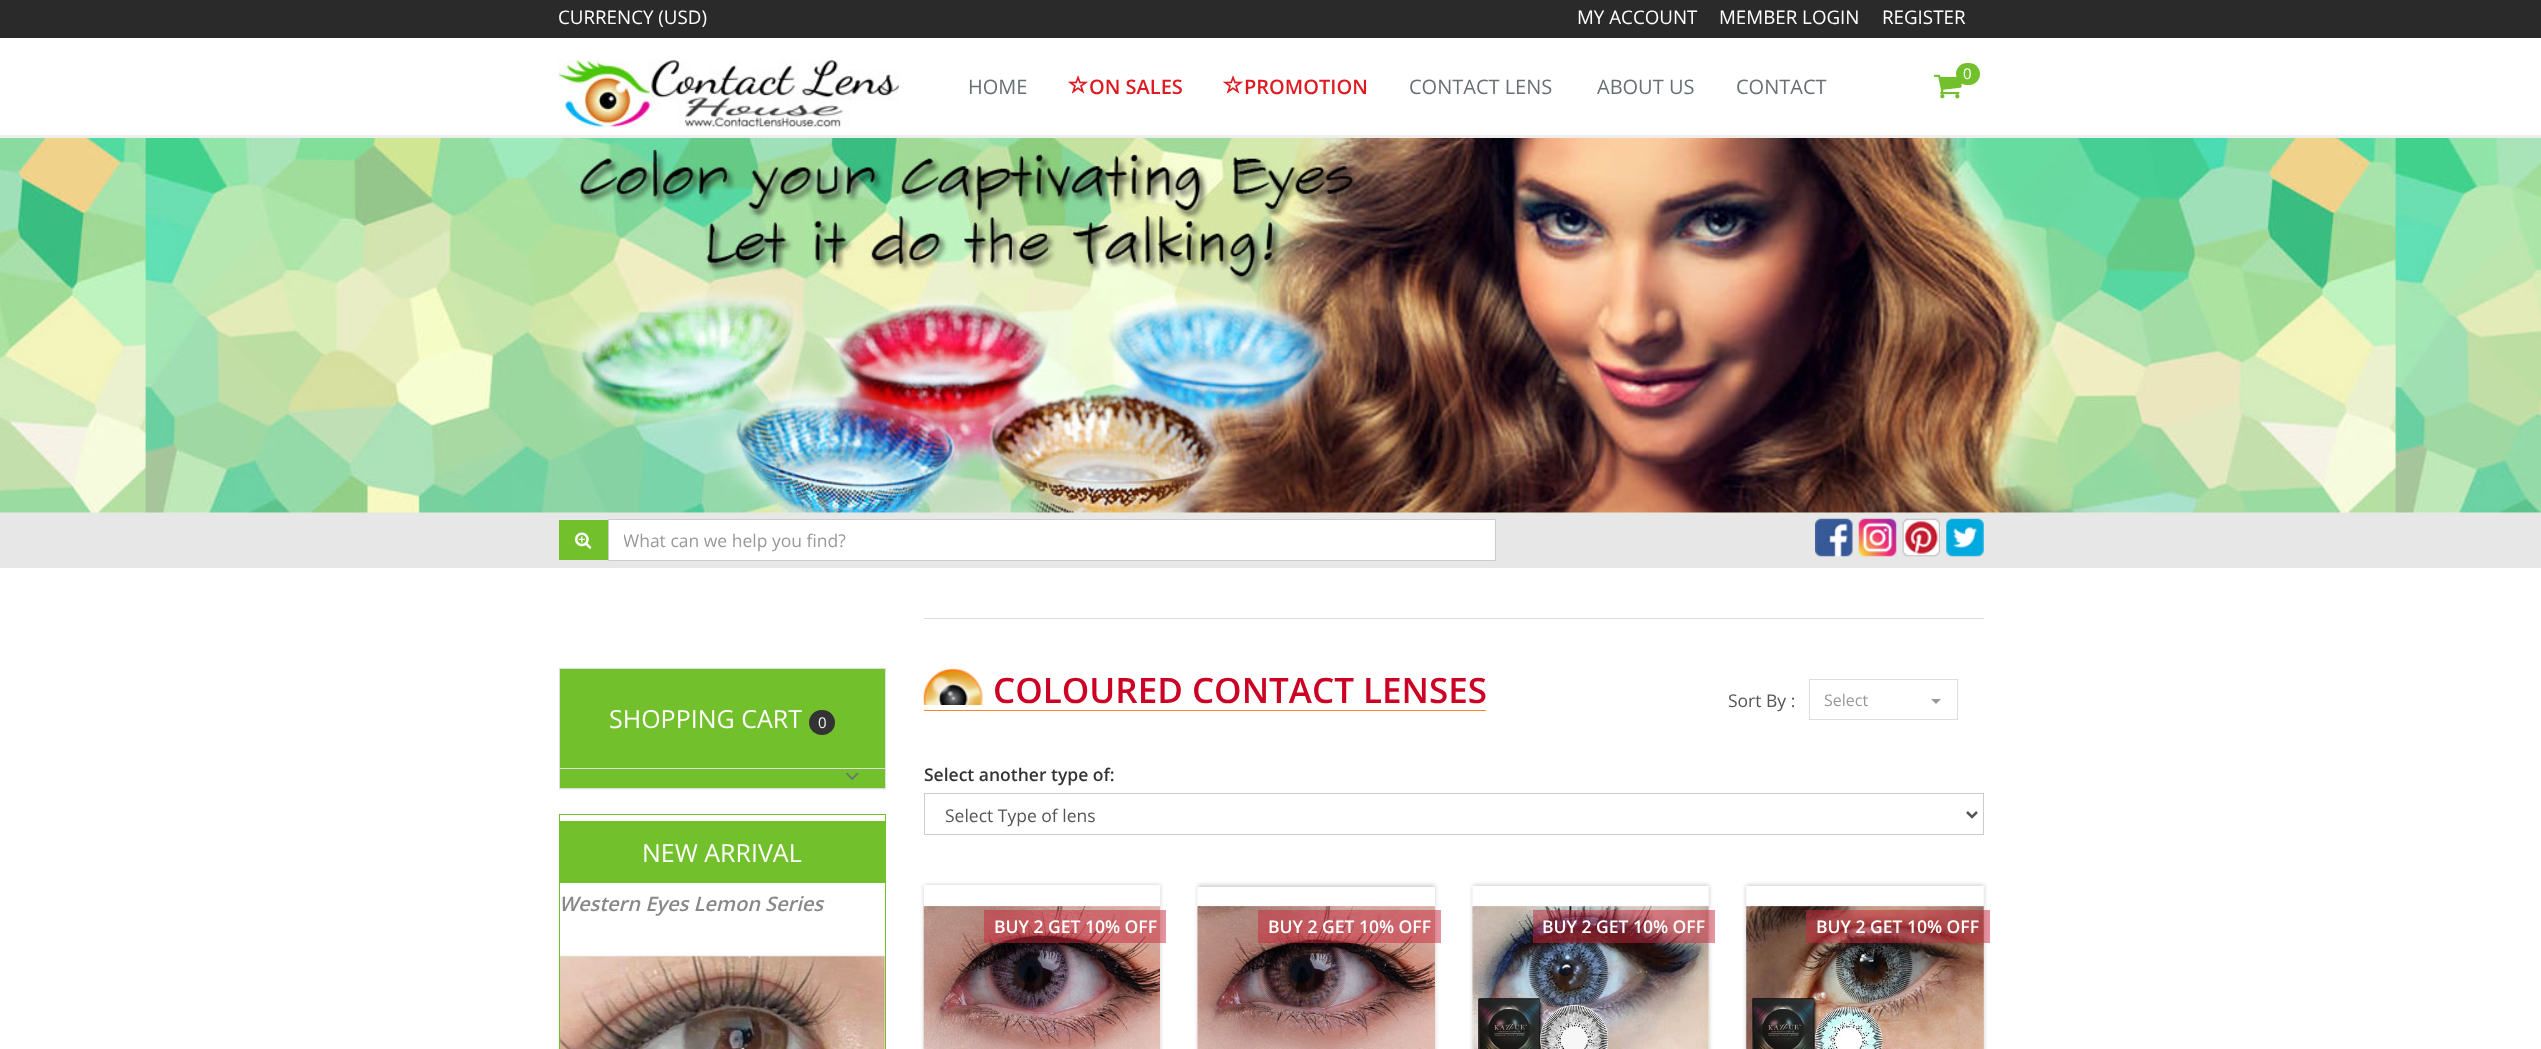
async function draw(canvas) {
	canvas.width = 2541;
	canvas.height = 1049;
	const c = canvas.getContext('2d');
	c.miterLimit = 4;
	c.fontKerning = 'normal';
	async function loadImage(src) {
		const img = new Image();
		img.src = src;
		await img.decode();
		return img;
	}

	c.fillStyle = '#fff';
	c.fillRect(0, 0, 2541, 1049);
	c.fillStyle = '#eee';
	c.fillRect(0, 135, 2541, 3);
	c.fillStyle = '#2a2a2a';
	c.fillRect(0, 0, 2541, 38);
	c.font = '18.75px Open Sans';
	c.fillStyle = '#fff';
	for (const [text, x, y] of [
		['CURRENCY (USD)', 558, 24],
		['MY ACCOUNT', 1577, 24],
		['MEMBER LOGIN', 1719, 24],
		['REGISTER', 1882, 24],
	]) {
		c.fillText(text, x, y);
	}
	c.drawImage(await loadImage('img1.png'), 558, 60, 341, 68);
	c.drawImage(await loadImage('img2.png'), 1933, 74, 29, 25);
	c.fillStyle = '#72c02c';
	c.beginPath();
	c.roundRect(1956, 63, 24, 22, 11);
	c.fill();
	c.font = '15px Open Sans';
	c.fillStyle = '#fff';
	c.fillText('0', 1963, 79);
	c.font = '20px Open Sans';
	c.fillStyle = '#687074';
	c.fillText('HOME', 968, 94);
	c.drawImage(await loadImage('img3.png'), 1068, 75, 20, 19);
	c.font = '600 20px Open Sans';
	c.fillStyle = '#df1a20';
	c.fillText('ON SALES', 1089, 94);
	c.drawImage(await loadImage('img3.png'), 1223, 75, 20, 19);
	c.fillText('PROMOTION', 1244, 94);
	c.font = '20px Open Sans';
	c.fillStyle = '#687074';
	for (const [text, x, y] of [
		['CONTACT LENS', 1409, 94],
		['ABOUT US', 1597, 94],
		['CONTACT', 1736, 94],
	]) {
		c.fillText(text, x, y);
	}
	c.fillStyle = '#e7ecd7';
	c.fillRect(0, 512, 2541, 1);
	c.drawImage(await loadImage('img4.png'), 0, 138, 2541, 375);
	c.fillStyle = '#e7e7e7';
	c.fillRect(0, 513, 2541, 55);
	c.fillStyle = '#72c02c';
	c.fillRect(559, 520, 49, 40);
	c.drawImage(await loadImage('img5.png'), 575, 532, 17, 17);
	c.fillStyle = '#fff';
	c.beginPath();
	c.rect(608.5, 519.5, 887, 41);
	c.fill();
	c.strokeStyle = '#ccc';
	c.stroke();
	c.save();
	c.beginPath();
	c.rect(624, 529, 856, 24);
	c.clip();
	c.font = '17.5px Open Sans';
	c.fillStyle = '#999';
	c.fillText('What can we help you find?', 623, 547);
	c.restore();
	c.drawImage(await loadImage('img6.png'), 1815, 518, 38, 39);
	c.drawImage(await loadImage('img7.png'), 1858, 518, 39, 39);
	c.drawImage(await loadImage('img8.png'), 1902, 518, 38, 39);
	c.drawImage(await loadImage('img9.png'), 1946, 518, 38, 39);
	c.fillStyle = '#0000000d';
	c.filter = 'blur(0.5px)';
	c.beginPath();
	c.rect(559, 669, 327, 121);
	c.fill();
	c.filter = 'none';
	c.strokeStyle = '#dedede';
	c.strokeRect(559.5, 668.5, 326, 120);
	c.fillStyle = '#72c02c';
	c.fillRect(560, 669, 325, 119);
	c.fillStyle = '#dedede';
	c.fillRect(560, 768, 325, 1);
	c.font = '25px Open Sans';
	c.fillStyle = '#fff';
	c.fillText('SHOPPING CART', 609, 728);
	c.fillStyle = '#333';
	c.beginPath();
	c.roundRect(809, 710, 26, 25, 12.5);
	c.fill();
	c.font = '15px Open Sans';
	c.fillStyle = '#f5f5f5';
	c.fillText('0', 818, 728);
	c.drawImage(await loadImage('img10.png'), 846, 772, 13, 8);
	c.strokeStyle = '#72c02c';
	c.strokeRect(559.5, 814.5, 326, 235);
	c.fillStyle = '#72c02c';
	c.fillRect(560, 821, 325, 62);
	c.font = '25px Open Sans';
	c.fillStyle = '#fff';
	c.fillText('NEW ARRIVAL', 642, 862);
	c.font = 'italic 600 20px Open Sans';
	c.fillStyle = '#888';
	c.fillText('Western Eyes Lemon Series', 559, 911);
	c.drawImage(await loadImage('img11.png'), 560, 955, 325, 94);
	c.fillStyle = '#dedede';
	c.fillRect(924, 618, 1060, 1);
	c.drawImage(await loadImage('img12.png'), 923, 668, 60, 37);
	c.fillStyle = '#fc8423';
	c.fillRect(924, 710, 562, 1);
	c.font = '600 35px Open Sans';
	c.fillStyle = '#cc0224';
	c.fillText('COLOURED CONTACT LENSES', 993, 703);
	c.font = '17.5px Open Sans';
	c.fillStyle = '#555';
	c.fillText('Sort By :', 1728, 707);
	c.strokeStyle = '#dedede';
	c.strokeRect(1809.5, 679.5, 148, 40);
	c.font = '16px Open Sans';
	c.fillStyle = '#999';
	c.fillText('Select', 1824, 706);
	c.beginPath();
	c.moveTo(1931, 699);
	c.lineTo(1941, 699);
	c.lineTo(1936, 704);
	c.closePath();
	c.fill();
	c.font = '600 17.5px Open Sans';
	c.fillStyle = '#333';
	c.fillText('Select another type of:', 924, 781);
	c.strokeStyle = '#ccc';
	c.strokeRect(924.5, 793.5, 1059, 41);
	c.beginPath();
	c.moveTo(1967, 812);
	c.lineTo(1972, 817);
	c.lineTo(1977, 812);
	c.strokeStyle = '#555';
	c.lineWidth = 2.5;
	c.stroke();
	c.font = '17.5px Open Sans';
	c.fillStyle = '#555';
	c.fillText('Select Type of lens', 945, 822);
	c.save();
	c.beginPath();
	c.moveTo(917, 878);
	c.lineTo(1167, 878);
	c.lineTo(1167, 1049);
	c.lineTo(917, 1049);
	c.closePath();
	c.moveTo(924, 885);
	c.lineTo(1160, 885);
	c.lineTo(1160, 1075);
	c.lineTo(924, 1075);
	c.closePath();
	c.clip('evenodd');
	c.fillStyle = '#ccc';
	c.filter = 'blur(2px)';
	c.beginPath();
	c.rect(924, 885, 236, 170);
	c.fill();
	c.filter = 'none';
	c.restore();
	c.drawImage(await loadImage('img13.png'), 923, 906, 237, 143);
	c.fillStyle = '#c9253c80';
	c.fillRect(984, 910, 182, 33);
	c.font = '600 17.5px Open Sans';
	c.fillStyle = '#fff';
	c.fillText('BUY 2 GET 10% OFF', 994, 933);
	c.fillStyle = '#ccc';
	c.filter = 'blur(2px)';
	c.beginPath();
	c.rect(1198, 885, 237, 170);
	c.fill();
	c.filter = 'none';
	c.drawImage(await loadImage('img14.png'), 1197, 887, 238, 162);
	c.fillStyle = '#c9253c80';
	c.fillRect(1258, 910, 183, 33);
	c.fillStyle = '#fff';
	c.fillText('BUY 2 GET 10% OFF', 1268, 933);
	c.fillStyle = '#ccc';
	c.filter = 'blur(2px)';
	c.beginPath();
	c.rect(1473, 885, 236, 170);
	c.fill();
	c.filter = 'none';
	c.drawImage(await loadImage('img15.png'), 1472, 886, 237, 163);
	c.fillStyle = '#c9253c80';
	c.fillRect(1533, 910, 182, 33);
	c.fillStyle = '#fff';
	c.fillText('BUY 2 GET 10% OFF', 1542, 933);
	c.fillStyle = '#ccc';
	c.filter = 'blur(2px)';
	c.beginPath();
	c.rect(1746, 885, 238, 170);
	c.fill();
	c.filter = 'none';
	c.drawImage(await loadImage('img16.png'), 1746, 886, 238, 163);
	c.fillStyle = '#c9253c80';
	c.fillRect(1806, 910, 184, 33);
	c.fillStyle = '#fff';
	c.fillText('BUY 2 GET 10% OFF', 1816, 933);
}

draw(document.querySelector('canvas'));
